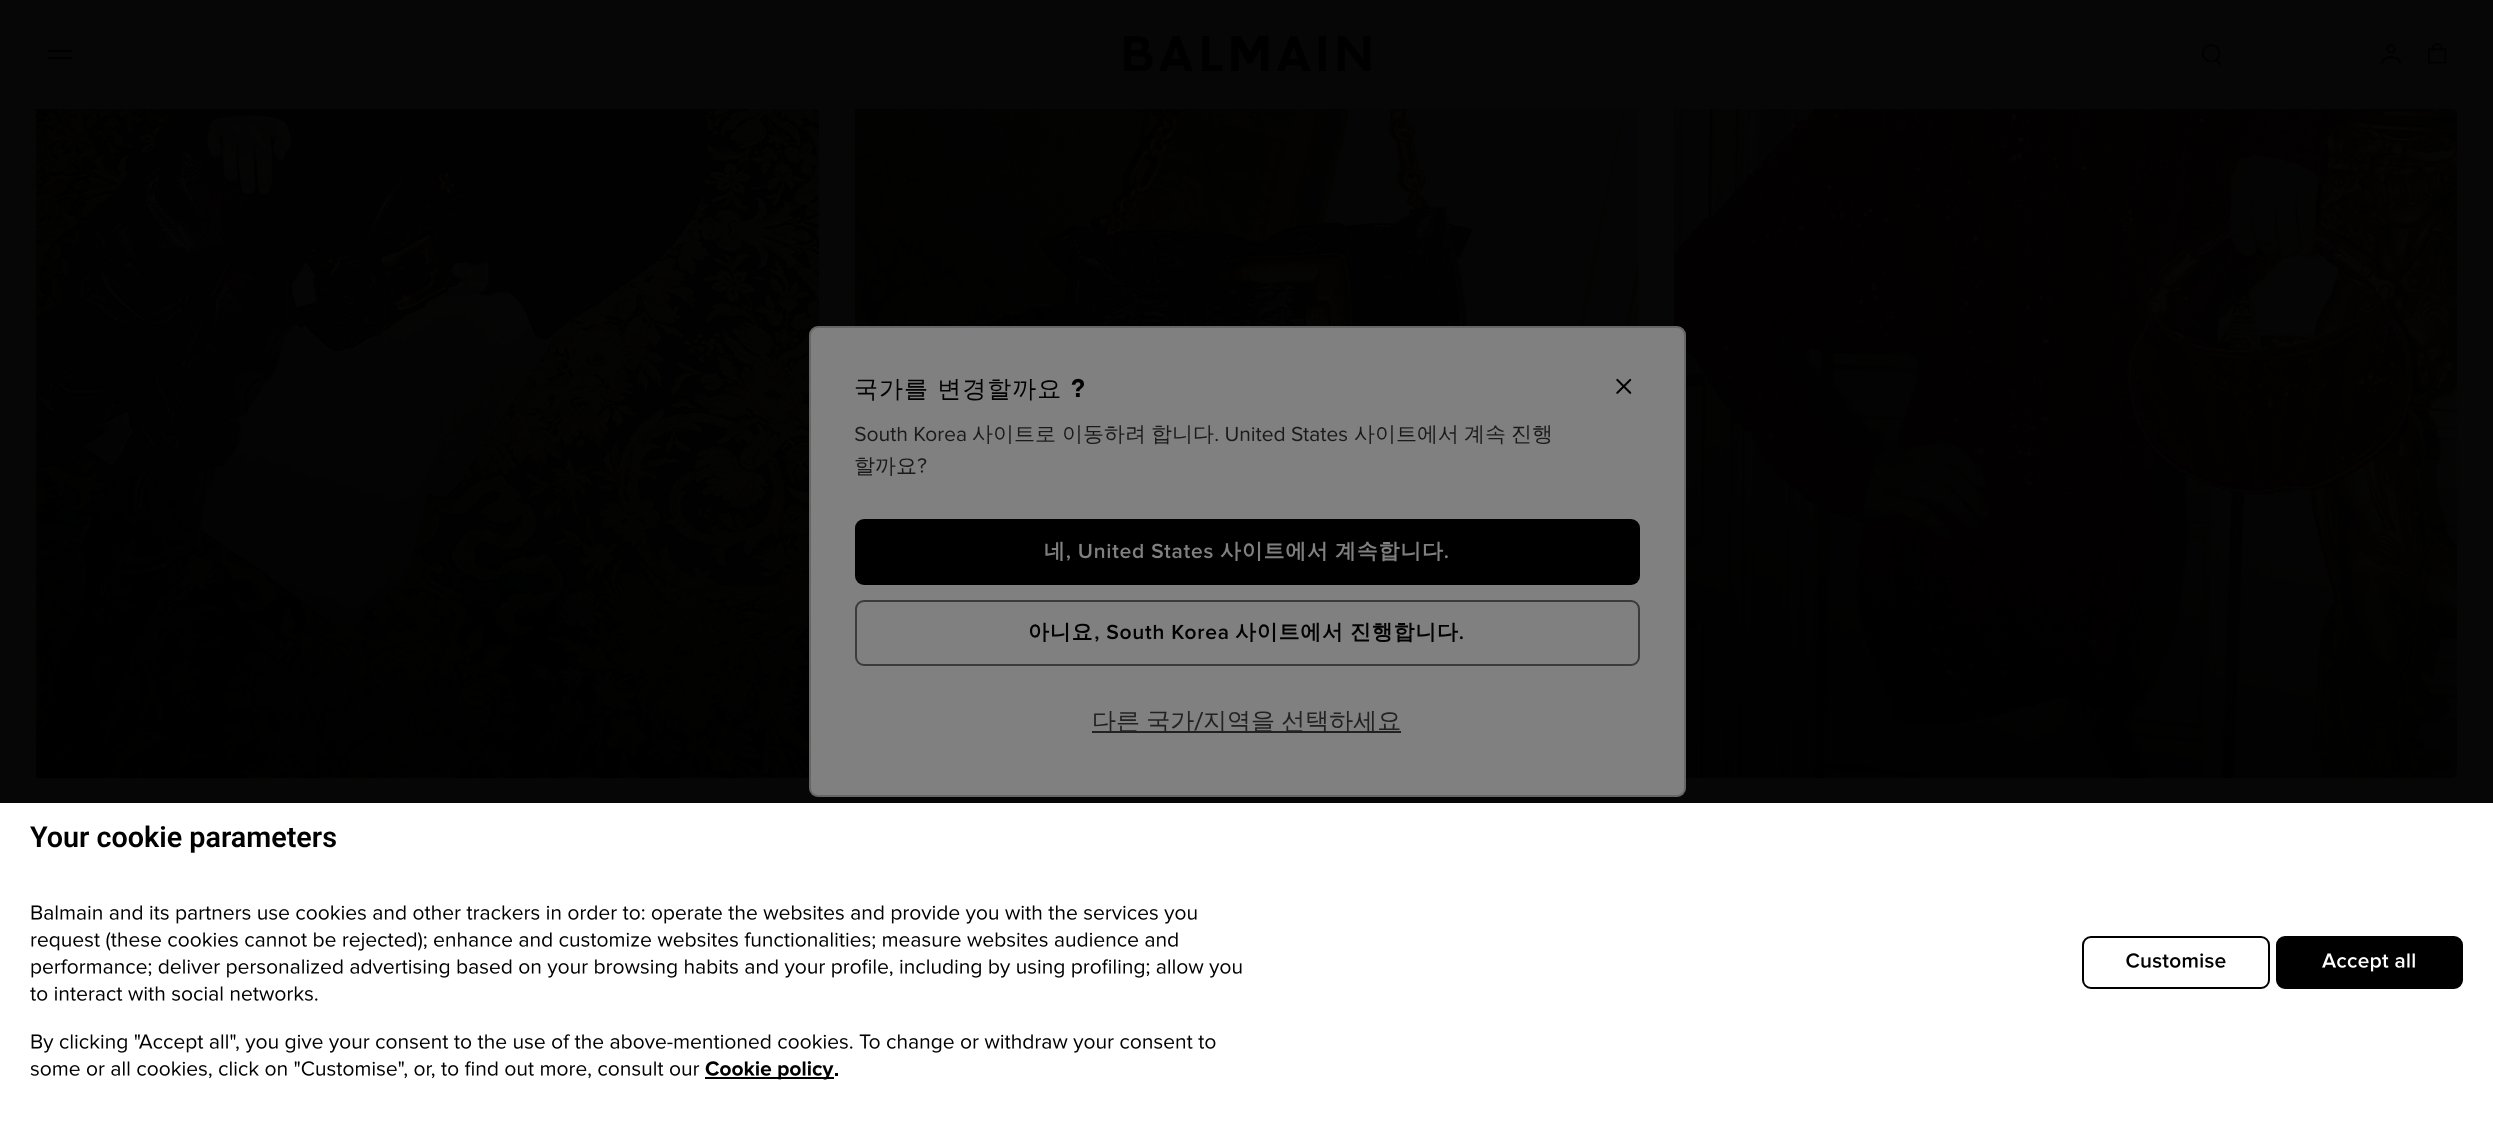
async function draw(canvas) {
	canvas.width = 2493;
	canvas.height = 1121;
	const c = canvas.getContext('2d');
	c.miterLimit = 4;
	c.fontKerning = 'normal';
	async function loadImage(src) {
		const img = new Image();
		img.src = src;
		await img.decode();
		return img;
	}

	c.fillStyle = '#060606';
	c.fillRect(0, 0, 2493, 1121);
	c.fillStyle = '#000';
	c.fillRect(48, 50, 24, 2);
	c.fillRect(48, 57, 24, 2);
	c.drawImage(await loadImage('img1.png'), 1124, 36, 247, 35);
	c.drawImage(await loadImage('img2.png'), 2202, 44, 20, 22);
	c.drawImage(await loadImage('img3.png'), 2381, 44, 20, 20);
	c.drawImage(await loadImage('img4.png'), 2428, 43, 19, 21);
	c.drawImage(await loadImage('img5.png'), 36, 109, 783, 669);
	c.drawImage(await loadImage('img6.png'), 855, 109, 783, 217);
	c.drawImage(await loadImage('img7.png'), 1674, 109, 783, 669);
	c.fillStyle = '#808080';
	c.beginPath();
	c.roundRect(809, 326, 877, 471, 9);
	c.fill();
	c.beginPath();
	c.roundRect(810, 327, 875, 469, 8);
	c.strokeStyle = '#00000033';
	c.lineWidth = 2;
	c.stroke();
	c.letterSpacing = '1px';
	c.font = '500 24px WenQuanYi Zen Hei';
	c.fillStyle = '#000';
	c.fillText('국가를 변경할까요', 854, 397);
	c.font = '500 24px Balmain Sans';
	c.fillText('?', 1071, 397);
	c.drawImage(await loadImage('img8.png'), 855, 426, 111, 16);
	c.letterSpacing = '0px';
	c.font = '500 21px WenQuanYi Zen Hei';
	c.fillStyle = '#1a1a1a';
	for (const [text, x, y] of [
		['사이트로', 972, 441],
		['이동하려', 1062, 441],
		['합니다', 1151, 441],
	]) {
		c.fillText(text, x, y);
	}
	c.drawImage(await loadImage('img9.png'), 1215, 426, 132, 16);
	for (const [text, x, y] of [
		['사이트에서', 1354, 441],
		['계속', 1464, 441],
		['진행', 1511, 441],
		['할까요', 854, 473],
	]) {
		c.fillText(text, x, y);
	}
	c.drawImage(await loadImage('img10.png'), 917, 458, 10, 15);
	c.fillStyle = '#000';
	c.beginPath();
	c.roundRect(855, 519, 785, 66, 9);
	c.fill();
	c.letterSpacing = '0.75px';
	c.font = 'bold 21px WenQuanYi Zen Hei';
	c.fillStyle = '#808080';
	c.fillText('네', 1044, 558);
	c.drawImage(await loadImage('img11.png'), 1066, 543, 147, 18);
	c.fillText('사이트에서', 1220, 558);
	c.fillText('계속합니다', 1335, 558);
	c.drawImage(await loadImage('img12.png'), 1444, 555, 4, 4);
	c.beginPath();
	c.roundRect(856, 601, 783, 64, 8);
	c.strokeStyle = '#3b3b3b';
	c.stroke();
	c.fillStyle = '#000';
	c.fillText('아니요', 1028, 639);
	c.drawImage(await loadImage('img13.png'), 1095, 624, 133, 18);
	c.fillText('사이트에서', 1235, 639);
	c.fillText('진행합니다', 1350, 639);
	c.drawImage(await loadImage('img14.png'), 1459, 636, 4, 4);
	c.fillStyle = '#222';
	c.fillRect(1092, 731, 309, 2);
	c.letterSpacing = '0px';
	c.wordSpacing = '-1px';
	c.font = '500 24px WenQuanYi Zen Hei';
	c.fillText('다른 국가', 1092, 729);
	c.wordSpacing = '0px';
	c.font = '24px Roboto';
	c.fillText('/', 1194, 729);
	c.wordSpacing = '-1px';
	c.font = '500 24px WenQuanYi Zen Hei';
	c.fillText('지역을 선택하세요', 1203, 729);
	c.drawImage(await loadImage('img15.png'), 1616, 378, 16, 16);
	c.fillStyle = '#fff';
	c.fillRect(0, 803, 2493, 318);
	c.wordSpacing = '0px';
	c.font = '600 28.75px Roboto';
	c.fillStyle = '#000';
	c.fillText('Your cookie parameters', 30, 847);
	c.drawImage(await loadImage('img16.png'), 31, 905, 1166, 19);
	c.drawImage(await loadImage('img17.png'), 31, 932, 1147, 19);
	c.drawImage(await loadImage('img18.png'), 31, 959, 1211, 19);
	c.drawImage(await loadImage('img19.png'), 30, 986, 288, 15);
	c.drawImage(await loadImage('img20.png'), 31, 1034, 1185, 19);
	c.drawImage(await loadImage('img21.png'), 30, 1061, 670, 18);
	c.fillRect(705, 1077, 129, 2);
	c.drawImage(await loadImage('img22.png'), 705, 1061, 129, 19);
	c.fillRect(835, 1073, 3, 3);
	c.beginPath();
	c.roundRect(2083, 937, 186, 51, 8);
	c.strokeStyle = '#000';
	c.stroke();
	c.drawImage(await loadImage('img23.png'), 2126, 953, 100, 15);
	c.beginPath();
	c.roundRect(2277, 937, 185, 51, 8);
	c.fill();
	c.stroke();
	c.drawImage(await loadImage('img24.png'), 2322, 953, 93, 19);
}

draw(document.querySelector('canvas'));
